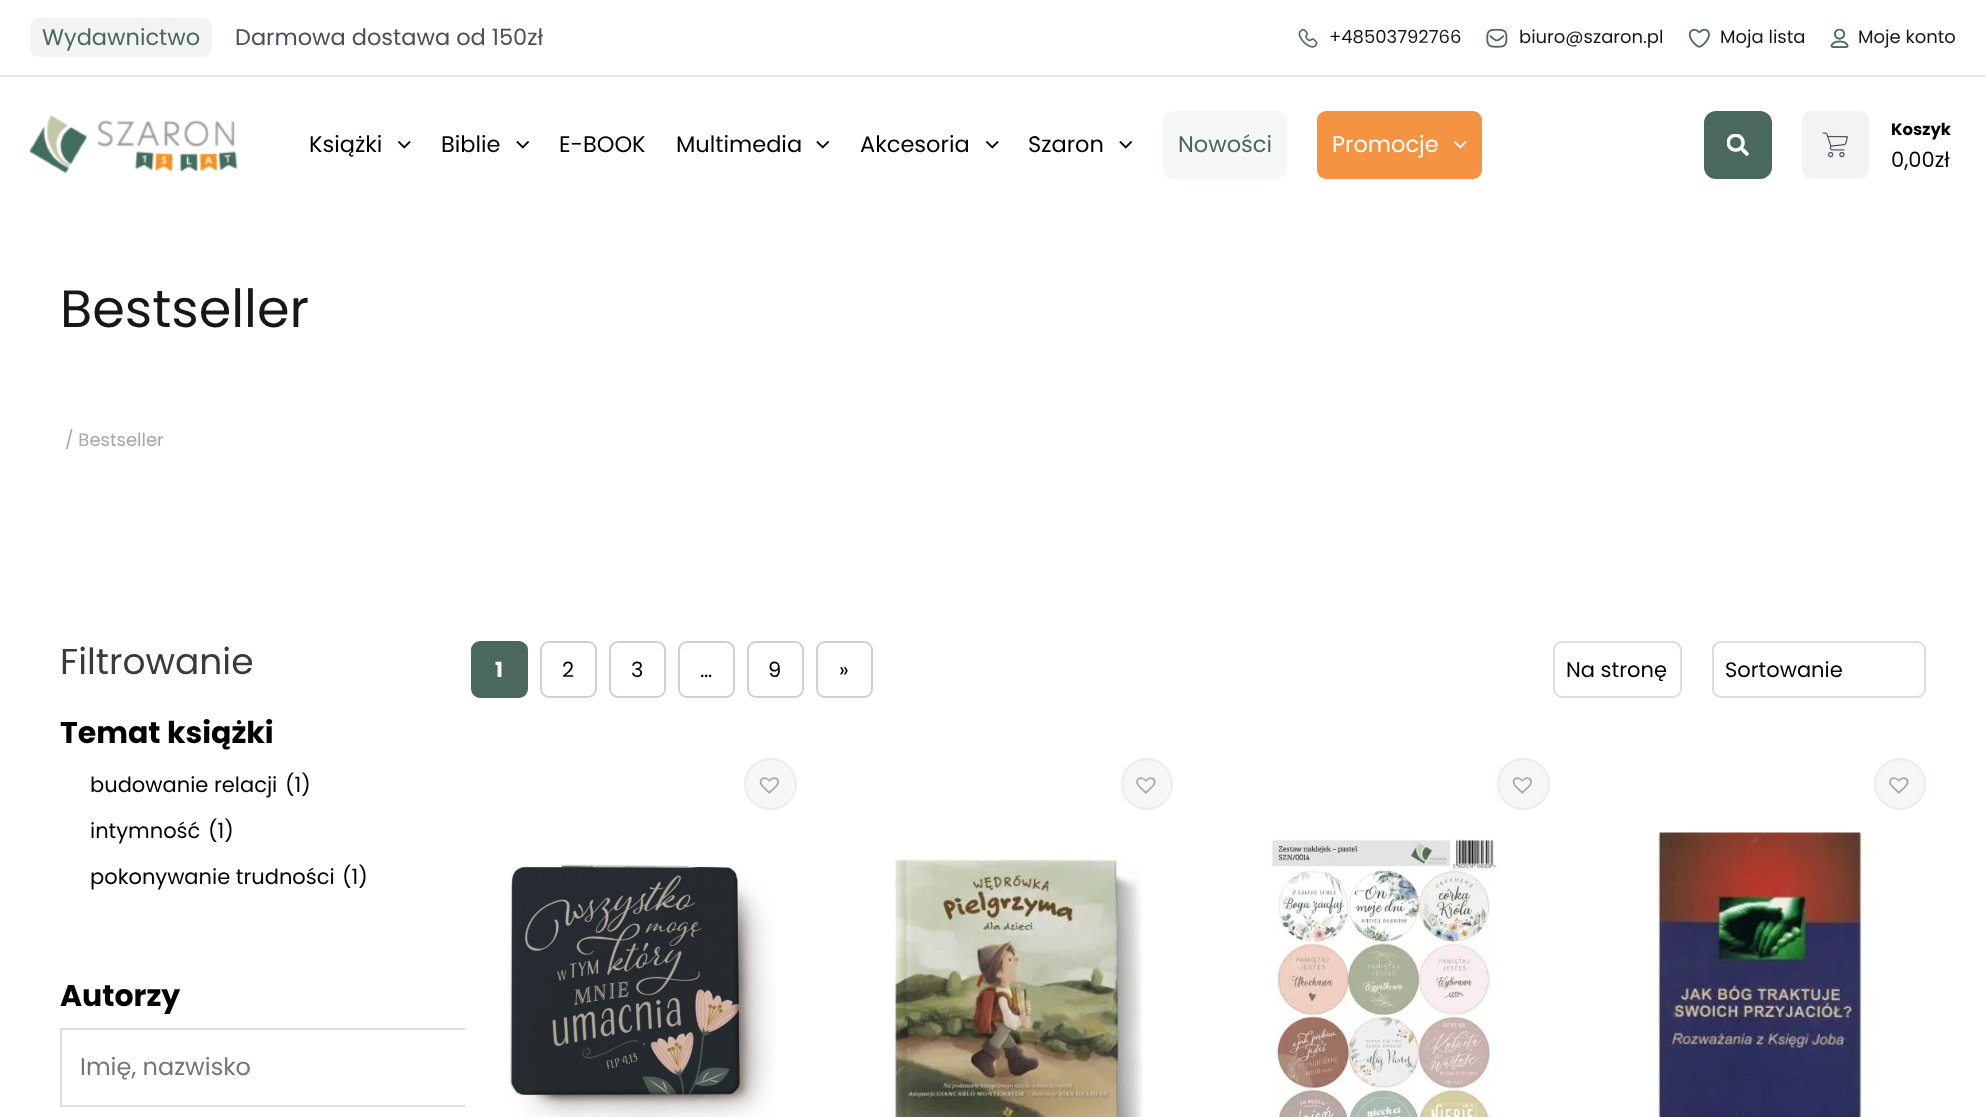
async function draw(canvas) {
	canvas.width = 1985;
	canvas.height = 1117;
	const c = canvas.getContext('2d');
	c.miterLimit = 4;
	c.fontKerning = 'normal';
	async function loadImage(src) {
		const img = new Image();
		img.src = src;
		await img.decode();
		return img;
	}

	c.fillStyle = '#fff';
	c.fillRect(0, 0, 1985, 1117);
	c.fillStyle = '#e5e5e5';
	c.fillRect(0, 75, 1985, 2);
	c.fillStyle = '#f3f3f4';
	c.beginPath();
	c.roundRect(30, 18, 182, 39, 9);
	c.fill();
	c.font = '22.5px Poppins';
	c.fillStyle = '#49685c';
	c.fillText('Wydawnictwo', 42, 45);
	c.fillStyle = '#4b4f58';
	c.fillText('Darmowa dostawa od 150zł', 235, 45);
	c.drawImage(await loadImage('img1.png'), 1298, 29, 20, 19);
	c.font = '18px Poppins';
	c.fillStyle = '#171717';
	c.fillText('+48503792766', 1329, 43);
	c.drawImage(await loadImage('img2.png'), 1486, 29, 22, 19);
	c.fillText('biuro@szaron.pl', 1519, 43);
	c.drawImage(await loadImage('img3.png'), 1688, 29, 22, 19);
	c.fillText('Moja lista', 1720, 43);
	c.drawImage(await loadImage('img4.png'), 1830, 29, 19, 19);
	c.fillText('Moje konto', 1858, 43);
	c.drawImage(await loadImage('img5.png'), 30, 115, 208, 58);
	c.font = '22.5px Poppins';
	c.fillStyle = '#000';
	c.fillText('Książki', 309, 152);
	c.drawImage(await loadImage('img6.png'), 398, 141, 13, 8);
	c.fillText('Biblie', 441, 152);
	c.drawImage(await loadImage('img7.png'), 516, 141, 14, 8);
	c.fillText('E-BOOK', 559, 152);
	c.fillText('Multimedia', 676, 152);
	c.drawImage(await loadImage('img7.png'), 816, 141, 14, 8);
	c.fillText('Akcesoria', 860, 152);
	c.drawImage(await loadImage('img6.png'), 986, 141, 13, 8);
	c.fillText('Szaron', 1028, 152);
	c.drawImage(await loadImage('img7.png'), 1119, 141, 14, 8);
	c.fillStyle = '#f6f7f7';
	c.beginPath();
	c.roundRect(1163, 111, 124, 68, 9);
	c.fill();
	c.fillStyle = '#49685c';
	c.fillText('Nowości', 1178, 152);
	c.fillStyle = '#f49342';
	c.beginPath();
	c.roundRect(1317, 111, 165, 68, 9);
	c.fill();
	c.fillStyle = '#fff';
	c.fillText('Promocje', 1332, 152);
	c.drawImage(await loadImage('img8.png'), 1454, 141, 13, 8);
	c.fillStyle = '#4a685c';
	c.beginPath();
	c.roundRect(1704, 111, 68, 68, 12);
	c.fill();
	c.drawImage(await loadImage('img9.png'), 1727, 134, 22, 22);
	c.fillStyle = '#f3f3f4';
	c.beginPath();
	c.roundRect(1802, 111, 67, 68, 9);
	c.fill();
	c.drawImage(await loadImage('img10.png'), 1822, 132, 26, 26);
	c.font = 'bold 16.5px Poppins';
	c.fillStyle = '#000';
	c.fillText('Koszyk', 1891, 135);
	c.font = '21px Poppins';
	c.fillText('0,00zł', 1891, 167);
	c.font = '52.5px Poppins';
	c.fillStyle = '#171717';
	c.fillText('Bestseller', 60, 327);
	c.font = '18px Poppins';
	c.fillStyle = '#a7a7a7';
	c.fillText('/ Bestseller', 65, 446);
	c.font = '36px Poppins';
	c.fillStyle = '#3a3a3a';
	c.fillText('Filtrowanie', 60, 674);
	c.font = 'bold 30px Poppins';
	c.fillStyle = '#000';
	c.fillText('Temat książki', 60, 743);
	c.font = '21px Poppins';
	for (const [text, x, y] of [
		['budowanie relacji', 90, 792],
		['(1)', 285, 792],
		['intymność', 90, 838],
		['(1)', 208, 838],
		['pokonywanie trudności', 90, 884],
		['(1)', 342, 884],
	]) {
		c.fillText(text, x, y);
	}
	c.font = 'bold 30px Poppins';
	c.fillText('Autorzy', 60, 1006);
	c.strokeStyle = '#ddd';
	c.lineWidth = 2;
	c.strokeRect(61, 1029, 538, 77);
	c.font = '24px Poppins';
	c.fillStyle = '#757575';
	c.fillText('Imię, nazwisko', 80, 1075);
	c.fillStyle = '#4a685c';
	c.beginPath();
	c.roundRect(472, 642, 55, 55, 8);
	c.fill();
	c.strokeStyle = '#4a685c';
	c.stroke();
	c.font = 'bold 21px Poppins';
	c.fillStyle = '#fff';
	c.fillText('1', 495, 677);
	c.beginPath();
	c.roundRect(541, 642, 55, 55, 8);
	c.strokeStyle = '#d0d0d2';
	c.stroke();
	c.font = '21px Poppins';
	c.fillStyle = '#000';
	c.fillText('2', 562, 677);
	c.beginPath();
	c.roundRect(610, 642, 55, 55, 8);
	c.stroke();
	c.fillText('3', 631, 677);
	c.beginPath();
	c.roundRect(748, 642, 55, 55, 8);
	c.stroke();
	c.fillText('9', 768, 677);
	c.beginPath();
	c.roundRect(817, 642, 55, 55, 8);
	c.stroke();
	c.fillText('»', 839, 677);
	c.beginPath();
	c.roundRect(679, 642, 55, 55, 8);
	c.stroke();
	c.fillText('…', 700, 677);
	c.beginPath();
	c.roundRect(1554, 642, 127, 55, 8);
	c.strokeStyle = '#ddd';
	c.stroke();
	c.fillText('Na stronę', 1566, 677);
	c.beginPath();
	c.roundRect(1713, 642, 212, 55, 8);
	c.stroke();
	c.fillText('Sortowanie', 1725, 677);
	c.fillStyle = '#fff';
	c.fillRect(465, 1028, 135, 79);
	c.fillStyle = '#f6f7f7';
	c.beginPath();
	c.roundRect(744, 758, 53, 52, 26);
	c.fill();
	c.beginPath();
	c.roundRect(745, 759, 51, 50, 25);
	c.strokeStyle = '#d0d0d240';
	c.stroke();
	c.drawImage(await loadImage('img11.png'), 759, 777, 20, 17);
	c.drawImage(await loadImage('img12.png'), 509, 864, 266, 253);
	c.beginPath();
	c.arc(1147, 784, 26, 0, 2 * Math.PI);
	c.fill();
	c.beginPath();
	c.arc(1147, 784, 25, 0, 2 * Math.PI);
	c.stroke();
	c.drawImage(await loadImage('img13.png'), 1136, 777, 20, 17);
	c.drawImage(await loadImage('img14.png'), 892, 856, 251, 261);
	c.beginPath();
	c.roundRect(1497, 758, 53, 52, 26);
	c.fill();
	c.beginPath();
	c.roundRect(1498, 759, 51, 50, 25);
	c.stroke();
	c.drawImage(await loadImage('img11.png'), 1512, 777, 20, 17);
	c.drawImage(await loadImage('img15.png'), 1271, 839, 229, 278);
	c.beginPath();
	c.arc(1900, 784, 26, 0, 2 * Math.PI);
	c.fill();
	c.beginPath();
	c.arc(1900, 784, 25, 0, 2 * Math.PI);
	c.stroke();
	c.drawImage(await loadImage('img13.png'), 1889, 777, 20, 17);
	c.drawImage(await loadImage('img16.png'), 1656, 832, 218, 285);
}

draw(document.querySelector('canvas'));
